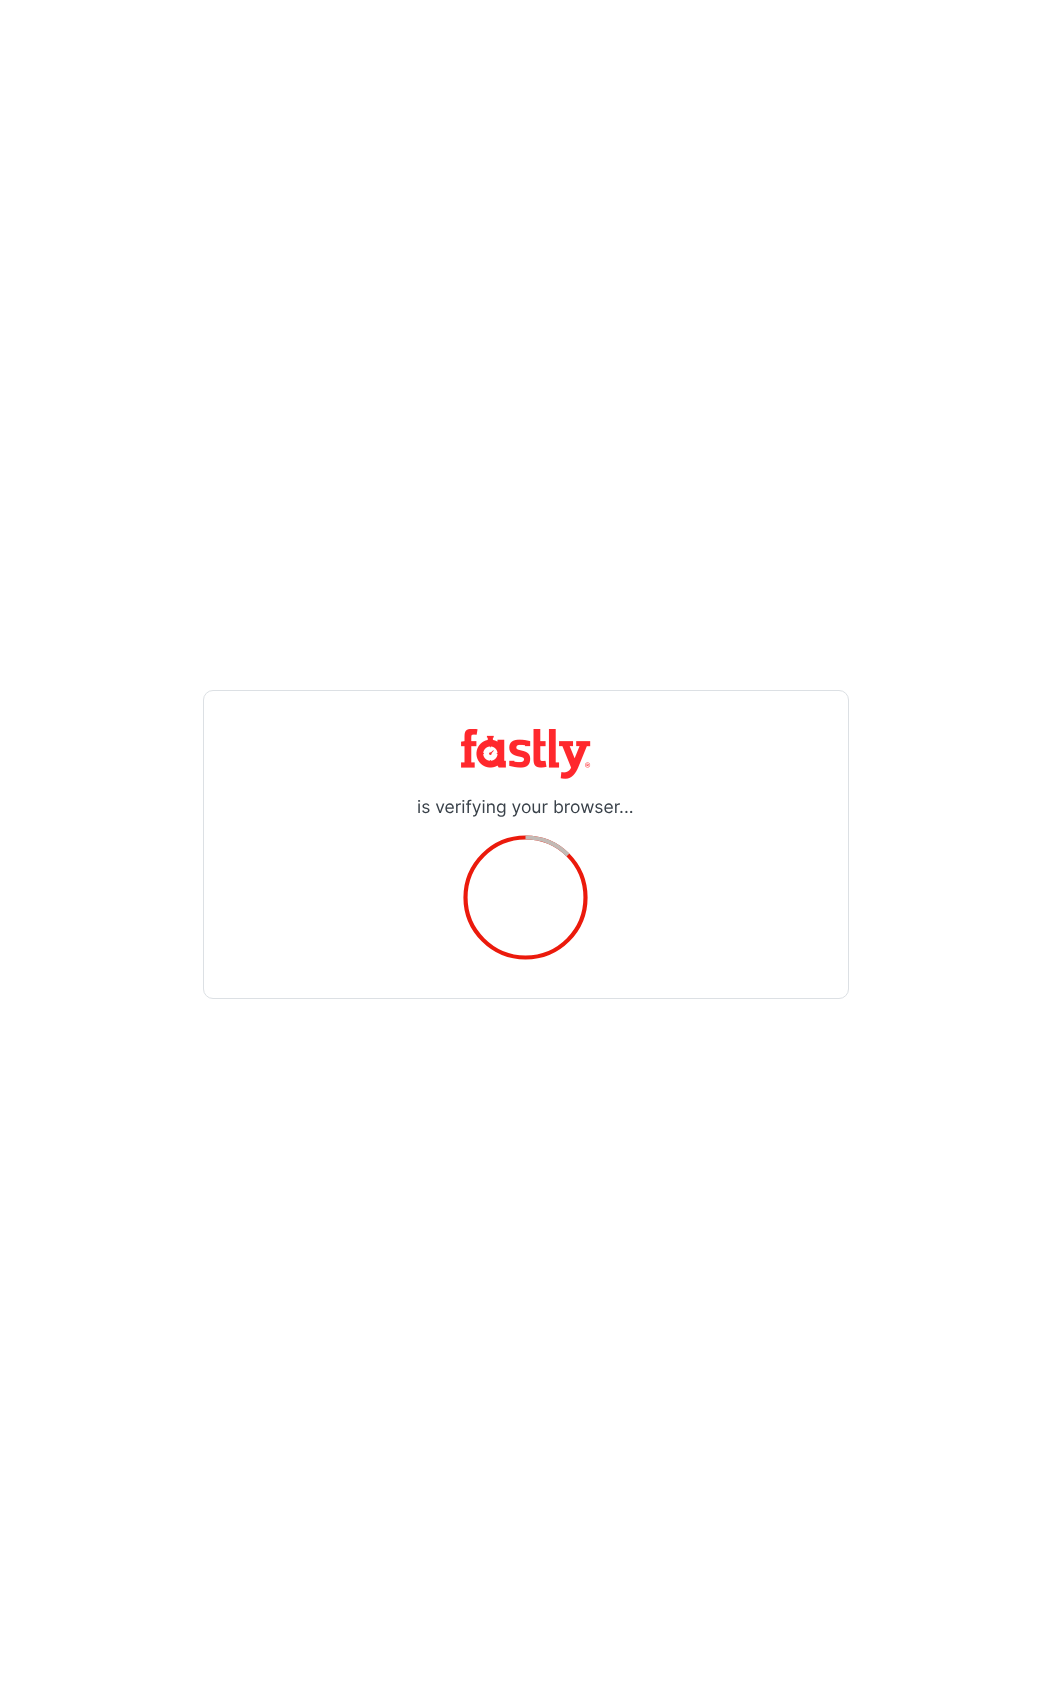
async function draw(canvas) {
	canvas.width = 1049;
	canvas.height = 1687;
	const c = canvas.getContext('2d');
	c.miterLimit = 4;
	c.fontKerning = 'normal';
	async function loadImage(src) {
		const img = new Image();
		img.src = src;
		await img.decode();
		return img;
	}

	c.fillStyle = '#fff';
	c.fillRect(0, 0, 1049, 1687);
	c.beginPath();
	c.roundRect(203.5, 690.5, 645, 308, 9.5);
	c.strokeStyle = '#dce0e4';
	c.stroke();
	c.drawImage(await loadImage('img1.png'), 461, 729, 130, 50);
	c.font = '17.5px Inter';
	c.fillStyle = '#3a424a';
	c.fillText('is verifying your browser...', 417, 813);
	c.beginPath();
	c.moveTo(465.5, 897.5);
	c.bezierCurveTo(465.5, 864.5, 492.5, 837.5, 525.5, 837.5);
	c.bezierCurveTo(559, 837.5, 585.5, 864.5, 585.5, 897.5);
	c.bezierCurveTo(585.5, 930.5, 559, 957.5, 525.5, 957.5);
	c.bezierCurveTo(492.5, 957.5, 465.5, 930.5, 465.5, 897.5);
	c.closePath();
	c.strokeStyle = '#eb1a0c';
	c.lineWidth = 4.2;
	c.stroke();
	c.beginPath();
	c.moveTo(568, 855);
	c.bezierCurveTo(557, 844, 541.5, 837.5, 525.5, 837.5);
	c.strokeStyle = '#c2bab5';
	c.stroke();
}

draw(document.querySelector('canvas'));
